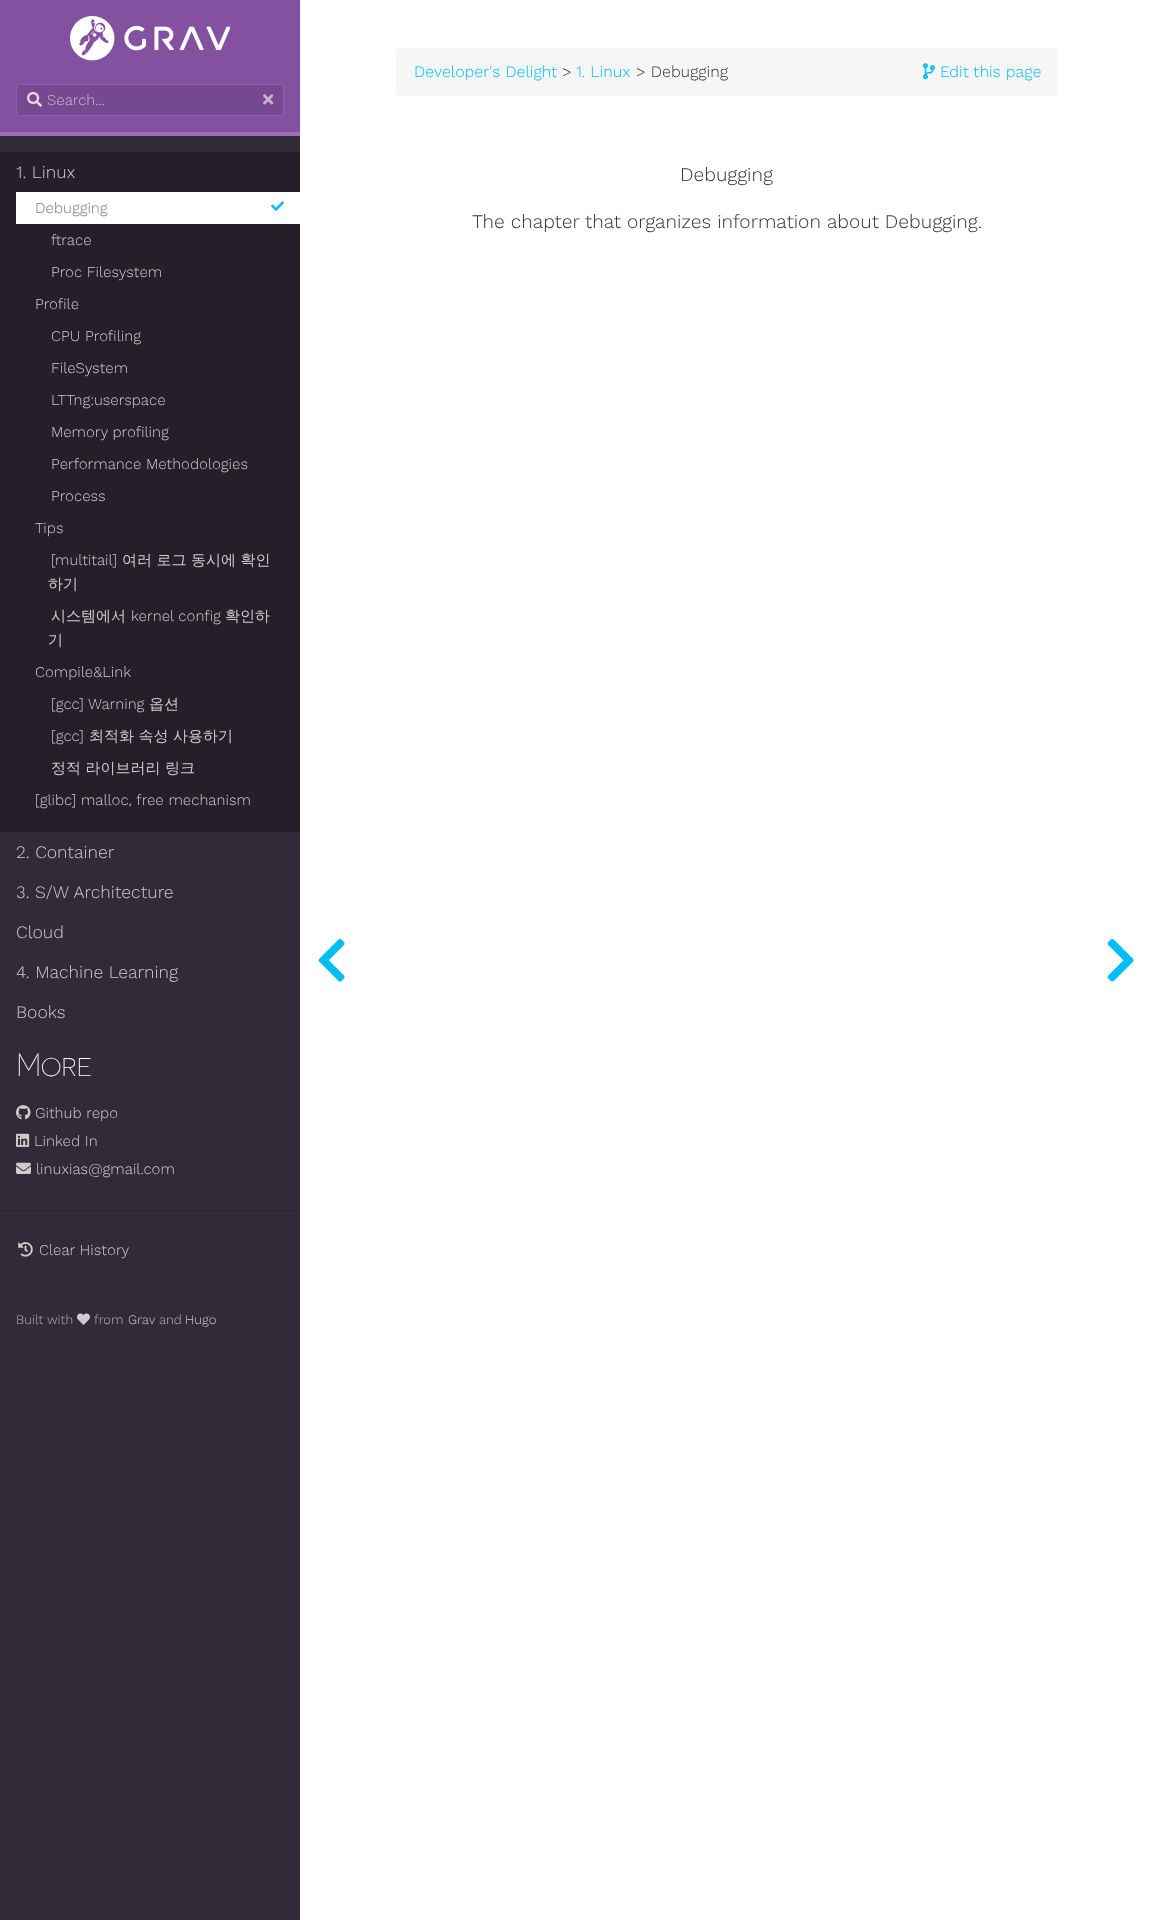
async function draw(canvas) {
	canvas.width = 1153;
	canvas.height = 1920;
	const c = canvas.getContext('2d');
	c.miterLimit = 4;
	c.fontKerning = 'normal';
	async function loadImage(src) {
		const img = new Image();
		img.src = src;
		await img.decode();
		return img;
	}

	c.fillStyle = '#fff';
	c.fillRect(0, 0, 1153, 1920);
	for (const [x, y, w, h, color] of [
		[0, 136, 300, 1784, '#322a38'],
		[0, 0, 300, 132, '#8451a1'],
		[0, 132, 300, 4, '#9c6fb6'],
	]) {
		c.fillStyle = color;
		c.fillRect(x, y, w, h);
	}
	c.drawImage(await loadImage('img1.png'), 70, 16, 160, 45);
	c.fillStyle = '#764890';
	c.beginPath();
	c.roundRect(16.5, 84.5, 267, 31, 3.5);
	c.fill();
	c.strokeStyle = '#915eae';
	c.stroke();
	c.drawImage(await loadImage('img2.png'), 27, 91, 15, 16);
	c.font = '300 15px Work Sans';
	c.fillStyle = '#c8b6d3';
	c.fillText('Search...', 47, 105);
	c.drawImage(await loadImage('img3.png'), 263, 94, 11, 11);
	c.fillStyle = '#251f29';
	c.fillRect(0, 152, 300, 680);
	c.font = '300 17.5px Work Sans';
	c.fillStyle = '#ccc';
	c.fillText('1. Linux', 16, 178);
	c.fillStyle = '#fff';
	c.fillRect(16, 192, 284, 32);
	c.font = '300 15px Work Sans';
	c.fillStyle = '#777';
	c.fillText('Debugging', 35, 213);
	c.drawImage(await loadImage('img4.png'), 271, 201, 13, 10);
	c.fillStyle = '#ccc';
	for (const [text, x, y] of [
		['ftrace', 51, 245],
		['Proc Filesystem', 51, 277],
		['Profile', 35, 309],
		['CPU Profiling', 51, 341],
		['FileSystem', 51, 373],
		['LTTng:userspace', 51, 405],
		['Memory profiling', 51, 437],
		['Performance Methodologies', 51, 469],
		['Process', 51, 501],
		['Tips', 35, 533],
		['[multitail]', 51, 565],
	]) {
		c.fillText(text, x, y);
	}
	c.font = '500 15px WenQuanYi Zen Hei';
	for (const [text, x, y] of [
		['여러 로그 동시에 확인', 122, 565],
		['하기', 48, 589],
		['시스템에서', 51, 621],
	]) {
		c.fillText(text, x, y);
	}
	c.font = '300 15px Work Sans';
	c.fillText('kernel config', 131, 621);
	c.font = '500 15px WenQuanYi Zen Hei';
	c.fillText('확인하', 225, 621);
	c.fillText('기', 48, 645);
	c.font = '300 15px Work Sans';
	c.fillText('Compile&Link', 35, 677);
	c.fillText('[gcc] Warning', 51, 709);
	c.font = '500 15px WenQuanYi Zen Hei';
	c.fillText('옵션', 149, 709);
	c.font = '300 15px Work Sans';
	c.fillText('[gcc]', 51, 741);
	c.font = '500 15px WenQuanYi Zen Hei';
	c.fillText('최적화 속성 사용하기', 89, 741);
	c.fillText('정적 라이브러리 링크', 51, 773);
	c.font = '300 15px Work Sans';
	c.fillText('[glibc] malloc, free mechanism', 35, 805);
	c.font = '300 17.5px Work Sans';
	for (const [text, x, y] of [
		['2. Container', 16, 858],
		['3. S/W Architecture', 16, 898],
		['Cloud', 16, 938],
		['4. Machine Learning', 16, 978],
		['Books', 16, 1018],
	]) {
		c.fillText(text, x, y);
	}
	c.letterSpacing = '-1px';
	c.font = '200 32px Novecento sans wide';
	c.fillStyle = '#fff';
	c.fillText('More', 16, 1076);
	c.drawImage(await loadImage('img5.png'), 16, 1105, 15, 15);
	c.letterSpacing = '0px';
	c.font = '300 15px Work Sans';
	c.fillStyle = '#ccc';
	c.fillText('Github repo', 35, 1118);
	c.drawImage(await loadImage('img6.png'), 16, 1133, 14, 14);
	c.fillText('Linked In', 34, 1146);
	c.drawImage(await loadImage('img7.png'), 16, 1162, 15, 12);
	c.fillText('linuxias@gmail.com', 36, 1174);
	c.fillStyle = '#2a232f';
	c.fillRect(0, 1210, 300, 1);
	c.drawImage(await loadImage('img8.png'), 18, 1242, 15, 15);
	c.fillStyle = '#ccc';
	c.fillText('Clear History', 39, 1255);
	c.font = '300 13px Work Sans';
	c.fillStyle = '#b3b3b3';
	c.fillText('Built with', 16, 1324);
	c.drawImage(await loadImage('img9.png'), 77, 1313, 13, 12);
	c.fillText('from', 94, 1324);
	c.fillStyle = '#ccc';
	c.fillText('Grav', 128, 1324);
	c.fillStyle = '#b3b3b3';
	c.fillText('and', 159, 1324);
	c.fillStyle = '#ccc';
	c.fillText('Hugo', 185, 1324);
	c.fillStyle = '#f6f6f6';
	c.beginPath();
	c.roundRect(396, 48, 661, 48, 2);
	c.fill();
	c.font = '300 16px Work Sans';
	c.fillStyle = '#00bdf3';
	c.fillText('Developer\'s Delight', 414, 77);
	c.fillStyle = '#323232';
	c.fillText('>', 562, 77);
	c.fillStyle = '#00bdf3';
	c.fillText('1. Linux', 576, 77);
	c.fillStyle = '#323232';
	c.fillText('> Debugging', 636, 77);
	c.drawImage(await loadImage('img10.png'), 923, 63, 12, 17);
	c.fillStyle = '#00bdf3';
	c.fillText('Edit this page', 940, 77);
	c.font = '300 19.2px Work Sans';
	c.fillStyle = '#323232';
	c.fillText('Debugging', 680, 181);
	c.fillText('The chapter that organizes information about Debugging.', 472, 228);
	c.drawImage(await loadImage('img11.png'), 318, 939, 27, 43);
	c.drawImage(await loadImage('img12.png'), 1107, 939, 27, 43);
}

draw(document.querySelector('canvas'));
